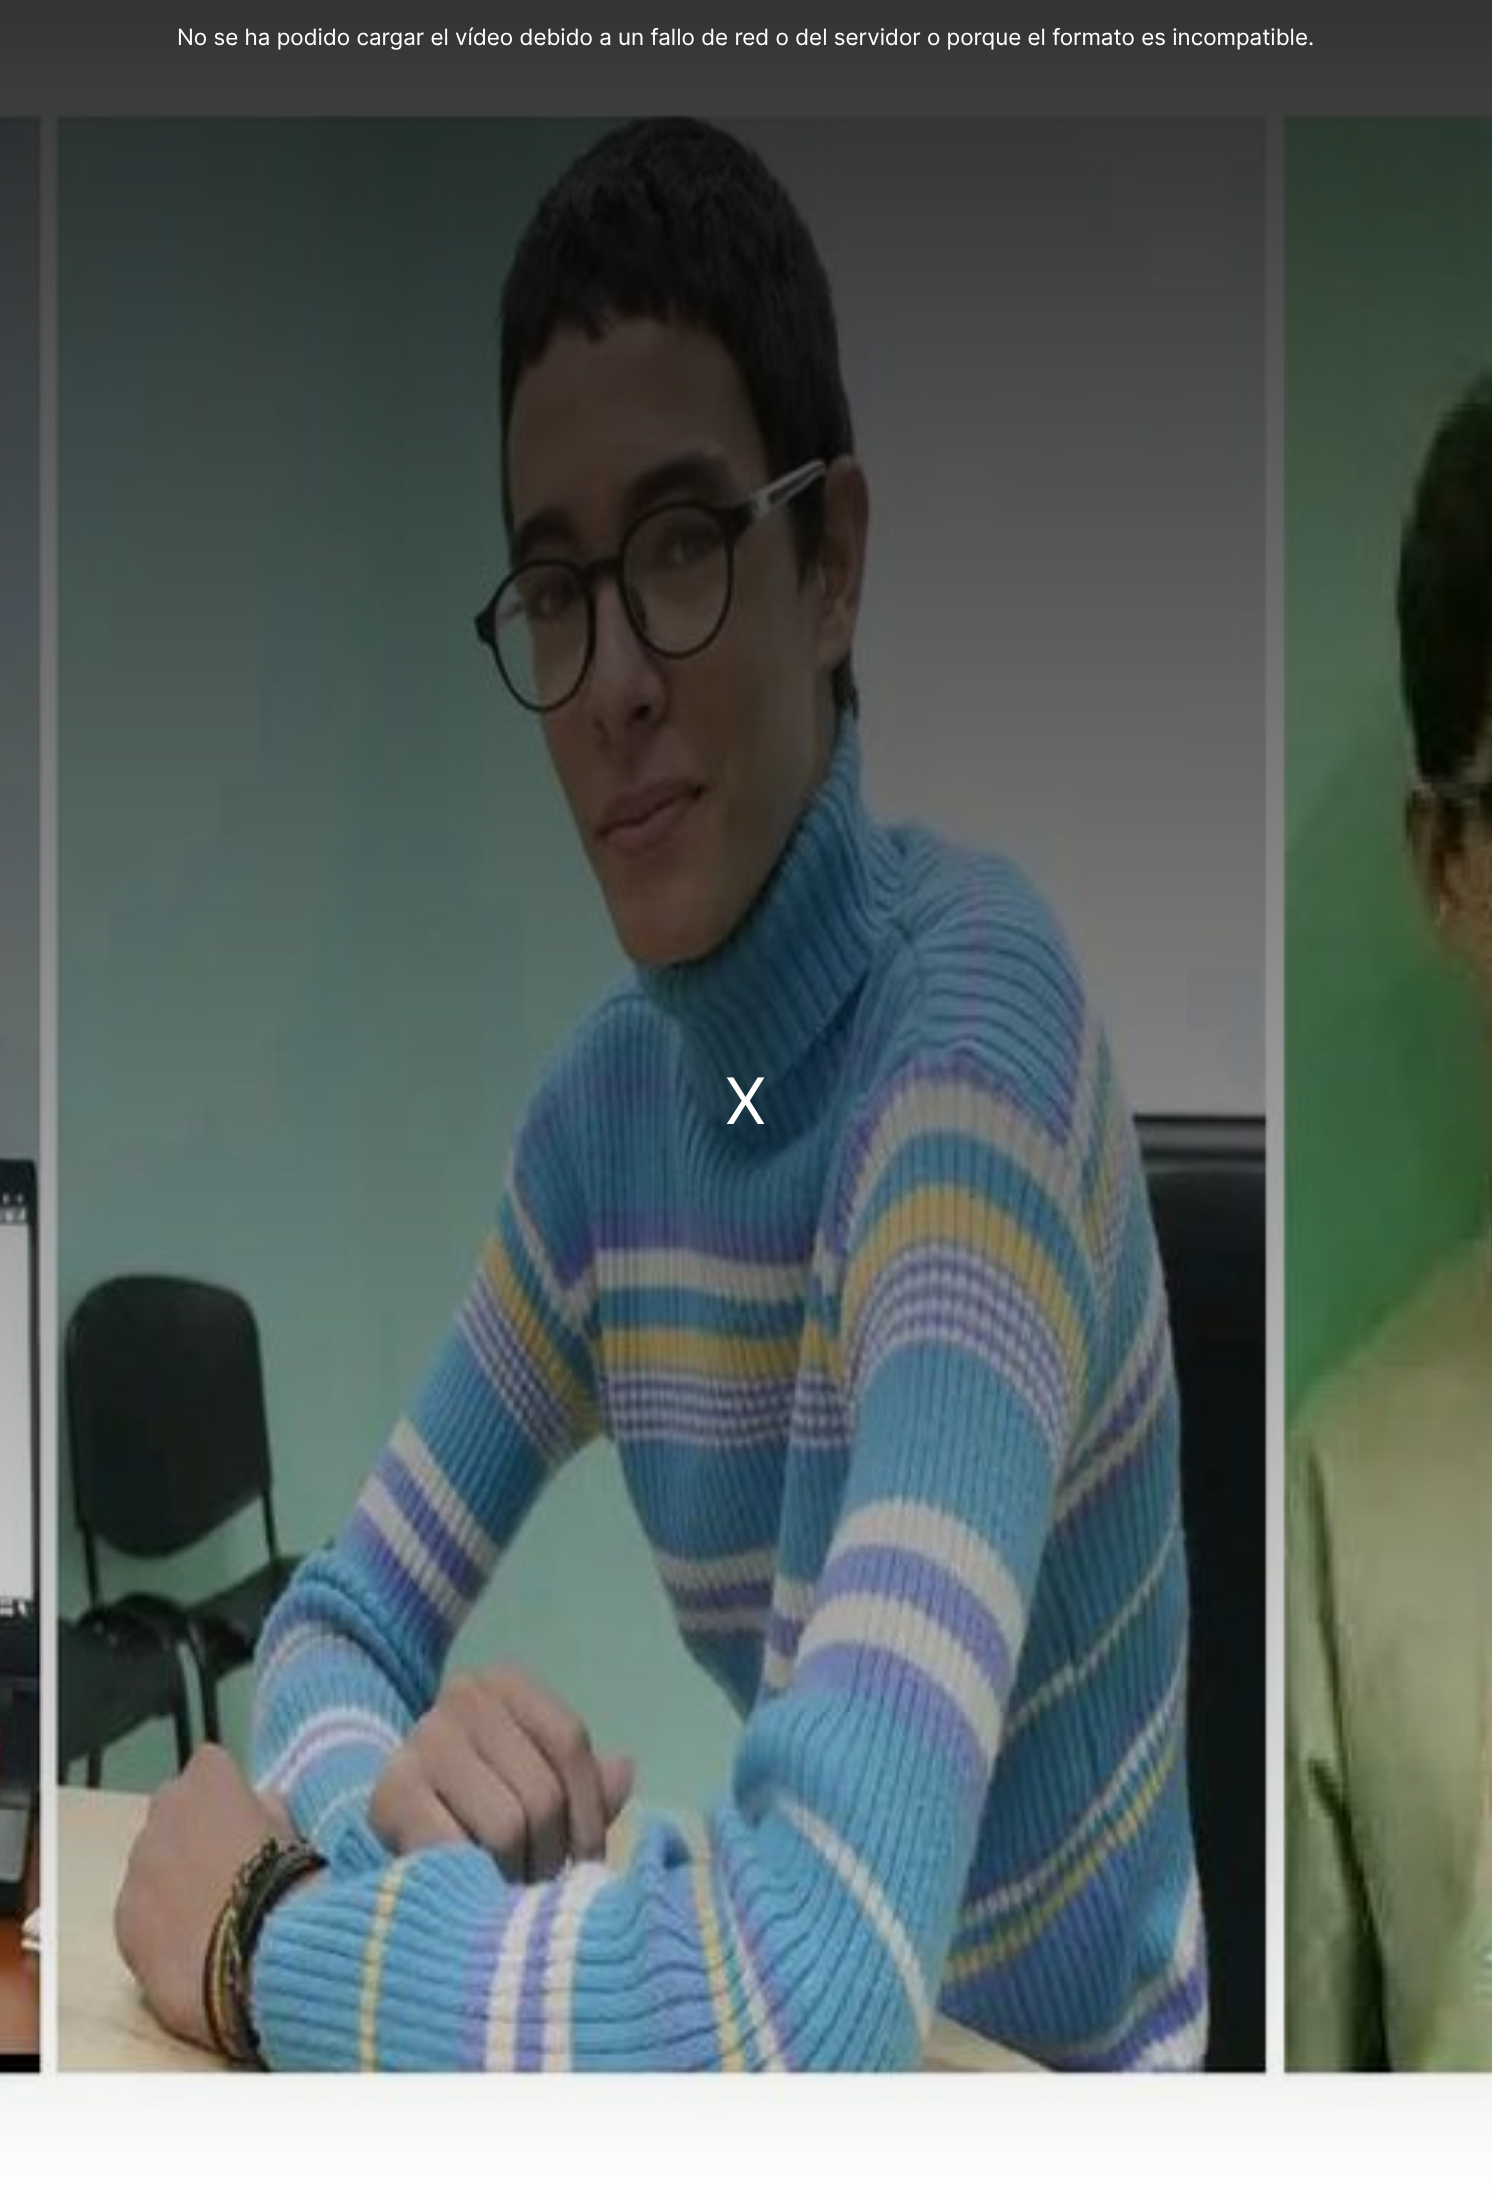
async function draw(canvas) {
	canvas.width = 1492;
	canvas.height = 2201;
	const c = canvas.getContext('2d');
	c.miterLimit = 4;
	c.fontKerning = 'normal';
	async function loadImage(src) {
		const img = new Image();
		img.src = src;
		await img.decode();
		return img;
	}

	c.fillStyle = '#fff';
	c.fillRect(0, 0, 1492, 2201);
	c.drawImage(await loadImage('img1.png'), 0, 0, 1492, 2201);
	c.font = '22.4px Inter';
	c.fillText('No se ha podido cargar el vídeo debido a un fallo de red o del servidor o porque el formato es incompatible.', 177, 45);
	c.font = '64px Inter';
	c.fillText('X', 725, 1124);
}

draw(document.querySelector('canvas'));
